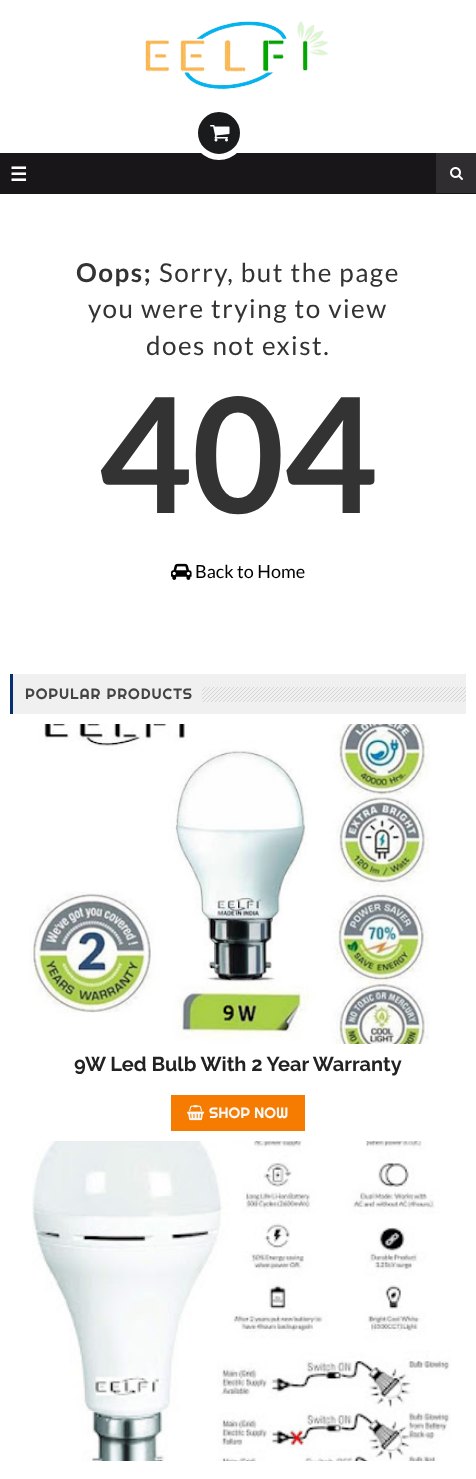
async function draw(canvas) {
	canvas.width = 476;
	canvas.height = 1479;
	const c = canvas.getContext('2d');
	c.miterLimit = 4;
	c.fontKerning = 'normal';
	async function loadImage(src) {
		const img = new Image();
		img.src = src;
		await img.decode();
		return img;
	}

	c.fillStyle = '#fff';
	c.fillRect(0, 0, 476, 1479);
	c.drawImage(await loadImage('img1.png'), 145, 21, 183, 69);
	c.fillStyle = '#181618';
	c.fillRect(0, 153, 476, 41);
	c.fillStyle = '#1a1b1c';
	c.beginPath();
	c.arc(219, 133, 24, 0, 2 * Math.PI);
	c.fill();
	c.strokeStyle = '#fff';
	c.lineWidth = 6;
	c.stroke();
	c.drawImage(await loadImage('img2.png'), 210, 125, 20, 17);
	c.font = 'bold 19px DejaVu Sans';
	c.fillStyle = '#fff';
	c.fillText('☰', 10, 181);
	c.fillStyle = '#2f2d2f';
	c.fillRect(436, 153, 40, 40);
	c.drawImage(await loadImage('img3.png'), 450, 167, 13, 13);
	c.letterSpacing = '1.5px';
	c.font = 'bold 26px Lato';
	c.fillStyle = '#333';
	c.fillText('Oops;', 76, 282);
	c.font = '26px Lato';
	for (const [text, x, y] of [
		['Sorry, but the page', 159, 282],
		['you were trying to view', 88, 318],
		['does not exist.', 146, 355],
	]) {
		c.fillText(text, x, y);
	}
	c.letterSpacing = '0px';
	c.font = 'bold 160px Lato';
	c.fillText('404', 99, 513);
	c.drawImage(await loadImage('img4.png'), 171, 563, 21, 17);
	c.font = '18px Lato';
	c.fillStyle = '#000';
	c.fillText('Back to Home', 195, 578);
	c.fillStyle = '#f0f0f0';
	c.fillRect(13, 674, 453, 40);
	c.fillStyle = '#052f72';
	c.fillRect(10, 674, 3, 40);
	c.letterSpacing = '1px';
	c.font = '15px Righteous';
	c.fillStyle = '#444';
	c.fillText('POPULAR PRODUCTS', 25, 699);
	c.drawImage(await loadImage('img5.png'), 202, 687, 264, 15);
	c.drawImage(await loadImage('img6.png'), 29, 724, 401, 320);
	c.letterSpacing = '0px';
	c.font = 'bold 20px Raleway';
	c.fillStyle = '#222';
	c.fillText('9W Led Bulb With 2 Year Warranty', 74, 1071);
	c.fillStyle = '#f57c00';
	c.fillRect(171, 1095, 134, 36);
	c.drawImage(await loadImage('img7.png'), 187, 1105, 18, 16);
	c.font = '15px Righteous';
	c.fillStyle = '#f7f7f7';
	c.fillText('SHOP NOW', 209, 1118);
	c.drawImage(await loadImage('img8.png'), 32, 1141, 419, 320);
}

draw(document.querySelector('canvas'));
